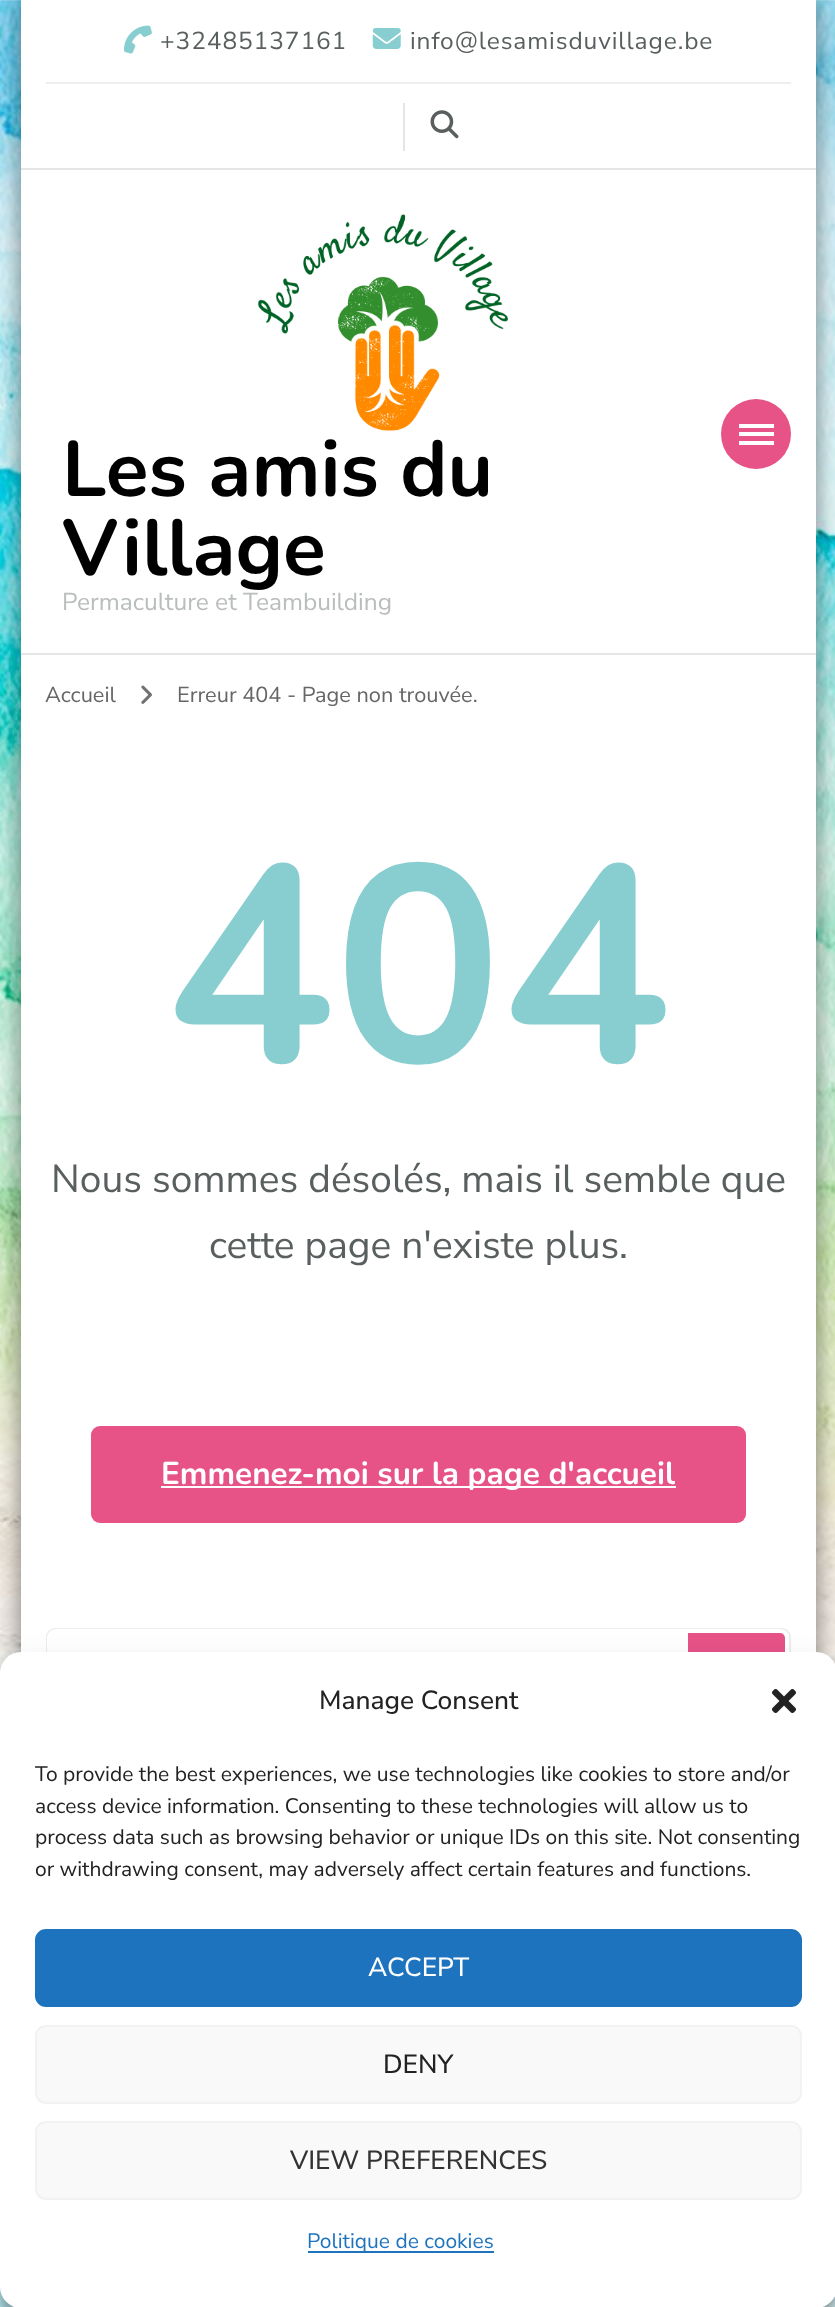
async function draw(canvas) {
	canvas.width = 835;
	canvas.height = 2307;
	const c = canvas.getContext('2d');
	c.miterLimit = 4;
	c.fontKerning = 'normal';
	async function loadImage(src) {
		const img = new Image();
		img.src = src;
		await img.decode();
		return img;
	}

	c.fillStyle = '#fff';
	c.fillRect(0, 0, 835, 2307);
	c.drawImage(await loadImage('img1.png'), 0, 0, 835, 2307);
	c.fillStyle = '#00000080';
	c.filter = 'blur(13px)';
	c.beginPath();
	c.rect(21, 0, 795, 2037);
	c.fill();
	c.filter = 'none';
	for (const [x, y, w, h, color] of [
		[21, 0, 795, 1652, '#fff'],
		[21, 653, 795, 2, '#e5e5e5'],
		[21, 168, 795, 2, '#e5e5e5'],
	]) {
		c.fillStyle = color;
		c.fillRect(x, y, w, h);
	}
	c.drawImage(await loadImage('img2.png'), 123, 25, 29, 29);
	c.letterSpacing = '0.9px';
	c.font = '24.5px Nunito Sans';
	c.fillStyle = '#595f5f';
	c.fillText('+32485137161', 160, 49);
	c.drawImage(await loadImage('img3.png'), 372, 28, 29, 21);
	c.fillText('info@lesamisduvillage.be', 410, 49);
	c.fillStyle = '#eee';
	c.fillRect(46, 82, 745, 2);
	c.fillStyle = '#e5e5e5';
	c.fillRect(403, 103, 2, 48);
	c.drawImage(await loadImage('img4.png'), 430, 110, 29, 29);
	c.drawImage(await loadImage('img5.png'), 257, 214, 251, 217);
	c.letterSpacing = '0px';
	c.font = 'bold 78.75px Nunito';
	c.fillStyle = '#000';
	c.fillText('Les amis du', 62, 496);
	c.fillText('Village', 62, 575);
	c.font = '24.5px Nunito Sans';
	c.fillStyle = '#b9bdbd';
	c.fillText('Permaculture et Teambuilding', 62, 610);
	c.fillStyle = '#e75387';
	c.beginPath();
	c.arc(756, 434, 35, 0, 2 * Math.PI);
	c.fill();
	for (const [x, y, w, h, color] of [
		[739, 424, 35, 4, '#fff'],
		[739, 432, 35, 4, '#fff'],
		[739, 441, 35, 4, '#fff'],
	]) {
		c.fillStyle = color;
		c.fillRect(x, y, w, h);
	}
	c.font = '21.75px Nunito Sans';
	c.fillStyle = '#666';
	c.fillText('Accueil', 45, 702);
	c.drawImage(await loadImage('img6.png'), 141, 685, 11, 19);
	c.fillText('Erreur 404 - Page non trouvée.', 177, 702);
	c.font = 'bold 280px Nunito';
	c.fillStyle = '#88ced0';
	c.fillText('404', 166, 1062);
	c.font = '38.9px Nunito Sans';
	c.fillStyle = '#595f5f';
	c.fillText('Nous sommes désolés, mais il semble que', 51, 1192);
	c.fillText('cette page n\'existe plus.', 209, 1258);
	c.fillStyle = '#e75387';
	c.beginPath();
	c.roundRect(91, 1426, 655, 97, 9);
	c.fill();
	c.fillStyle = '#fff';
	c.fillRect(161, 1486, 515, 2);
	c.font = 'bold 31.5px Nunito';
	c.fillText('Emmenez-moi sur la page d\'accueil', 161, 1484);
	c.beginPath();
	c.roundRect(47, 1629, 743, 106, 8);
	c.strokeStyle = '#ededed';
	c.lineWidth = 2;
	c.stroke();
	c.beginPath();
	c.roundRect(49, 1631, 633, 101, [7, 0, 0, 7]);
	c.fill();
	c.strokeStyle = '#fff';
	c.lineWidth = 4;
	c.stroke();
	c.fillStyle = '#e75387';
	c.beginPath();
	c.roundRect(686, 1631, 101, 101, [0, 7, 7, 0]);
	c.fill();
	c.stroke();
	c.fillStyle = '#0000003b';
	c.filter = 'blur(5px)';
	c.beginPath();
	c.roundRect(0, 1663, 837, 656, 21);
	c.fill();
	c.filter = 'none';
	c.fillStyle = '#00000030';
	c.filter = 'blur(17.5px)';
	c.beginPath();
	c.roundRect(0, 1670, 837, 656, 21);
	c.fill();
	c.filter = 'none';
	c.fillStyle = '#fff';
	c.beginPath();
	c.roundRect(0, 1652, 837, 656, 21);
	c.fill();
	c.font = '500 26.25px Nunito Sans';
	c.fillStyle = '#222';
	c.fillText('Manage Consent', 319, 1709);
	c.drawImage(await loadImage('img7.png'), 772, 1689, 24, 24);
	c.font = '21px Nunito Sans';
	for (const [text, x, y] of [
		['To provide the best experiences, we use technologies like cookies to store and/or', 35, 1781],
		['access device information. Consenting to these technologies will allow us to', 35, 1813],
		['process data such as browsing behavior or unique IDs on this site. Not consenting', 35, 1844],
		['or withdrawing consent, may adversely affect certain features and functions.', 35, 1876],
	]) {
		c.fillText(text, x, y);
	}
	c.fillStyle = '#1e73be';
	c.beginPath();
	c.roundRect(36, 1930, 765, 76, 10);
	c.fill();
	c.strokeStyle = '#1e73be';
	c.lineWidth = 2;
	c.stroke();
	c.font = '500 26.25px Nunito Sans';
	c.fillStyle = '#fff';
	c.fillText('ACCEPT', 368, 1976);
	c.fillStyle = '#f9f9f9';
	c.beginPath();
	c.roundRect(36, 2026, 765, 77, 10);
	c.fill();
	c.strokeStyle = '#f2f2f2';
	c.stroke();
	c.fillStyle = '#222';
	c.fillText('DENY', 383, 2073);
	c.fillStyle = '#f9f9f9';
	c.beginPath();
	c.roundRect(36, 2122, 765, 77, 10);
	c.fill();
	c.stroke();
	c.fillStyle = '#333';
	c.fillText('VIEW PREFERENCES', 290, 2169);
	c.fillStyle = '#1e73be';
	c.fillRect(308, 2251, 186, 2);
	c.font = '21px Nunito Sans';
	c.fillText('Politique de cookies', 307, 2248);
}

draw(document.querySelector('canvas'));
